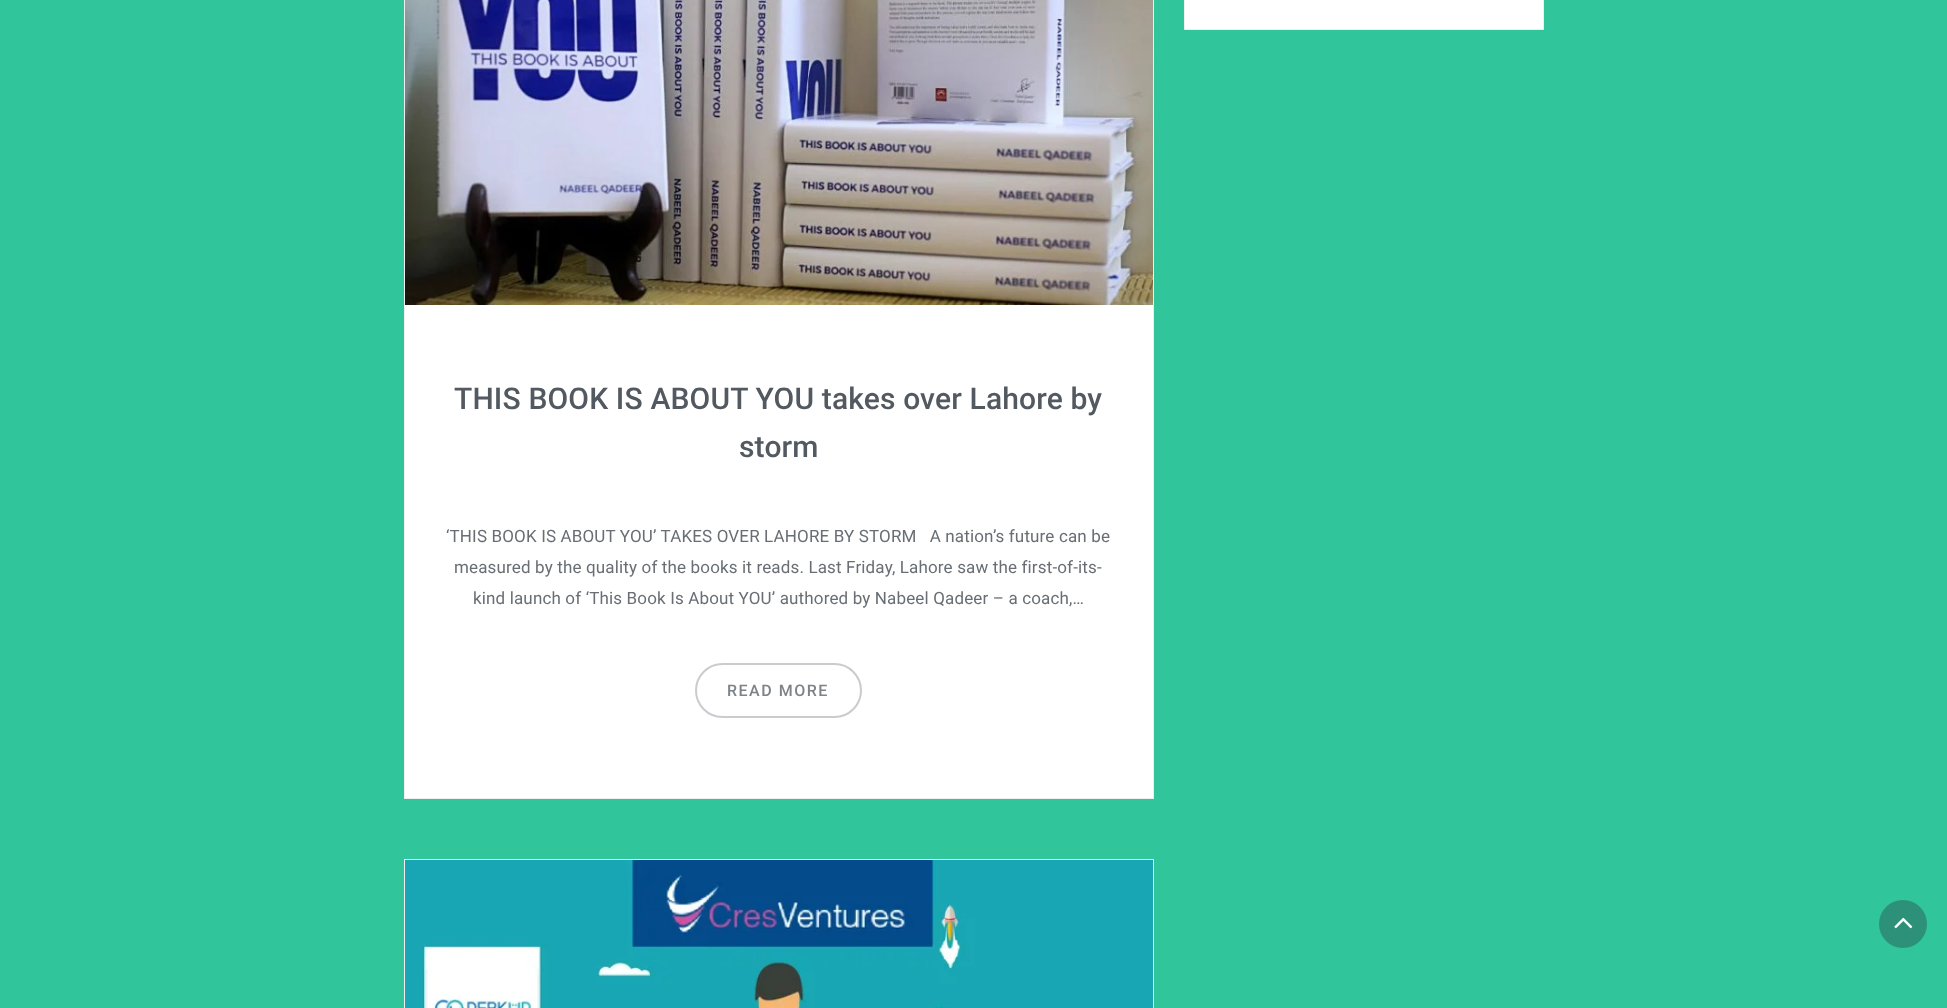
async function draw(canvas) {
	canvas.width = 1947;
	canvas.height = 1008;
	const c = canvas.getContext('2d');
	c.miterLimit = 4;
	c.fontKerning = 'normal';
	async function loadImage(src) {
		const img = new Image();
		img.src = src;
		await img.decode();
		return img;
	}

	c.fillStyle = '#30c59b';
	c.fillRect(0, 0, 1947, 1008);
	c.fillStyle = '#fff';
	c.beginPath();
	c.rect(1184.5, -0.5, 359, 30);
	c.fill();
	c.strokeStyle = '#eeeeef';
	c.stroke();
	c.fillRect(405, 305, 748, 493);
	c.strokeRect(404.5, -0.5, 749, 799);
	c.drawImage(await loadImage('img1.png'), 405, 0, 748, 305);
	c.letterSpacing = '0.15px';
	c.font = '500 30px Roboto';
	c.fillStyle = '#525961';
	c.fillText('THIS BOOK IS ABOUT YOU takes over Lahore by', 454, 409);
	c.fillText('storm', 739, 457);
	c.font = '17px Roboto';
	c.fillStyle = '#686e74';
	for (const [text, x, y] of [
		['‘THIS BOOK IS ABOUT YOU’ TAKES OVER LAHORE BY STORM   A nation’s future can be', 446, 542],
		['measured by the quality of the books it reads. Last Friday, Lahore saw the first-of-its-', 454, 573],
		['kind launch of ‘This Book Is About YOU’ authored by Nabeel Qadeer – a coach,…', 473, 604],
	]) {
		c.fillText(text, x, y);
	}
	c.beginPath();
	c.roundRect(696, 664, 165, 53, 26.5);
	c.strokeStyle = '#c9cbce';
	c.lineWidth = 2;
	c.stroke();
	c.letterSpacing = '1.5px';
	c.font = '500 16px Roboto';
	c.fillStyle = '#7d8388';
	c.fillText('READ MORE', 727, 696);
	c.strokeStyle = '#eeeeef';
	c.lineWidth = 1;
	c.strokeRect(404.5, 859.5, 749, 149);
	c.drawImage(await loadImage('img2.png'), 405, 860, 748, 148);
	c.fillStyle = '#2d9179';
	c.beginPath();
	c.arc(1903, 924, 24, 0, 2 * Math.PI);
	c.fill();
	c.drawImage(await loadImage('img3.png'), 1894, 917, 19, 12);
}

draw(document.querySelector('canvas'));
